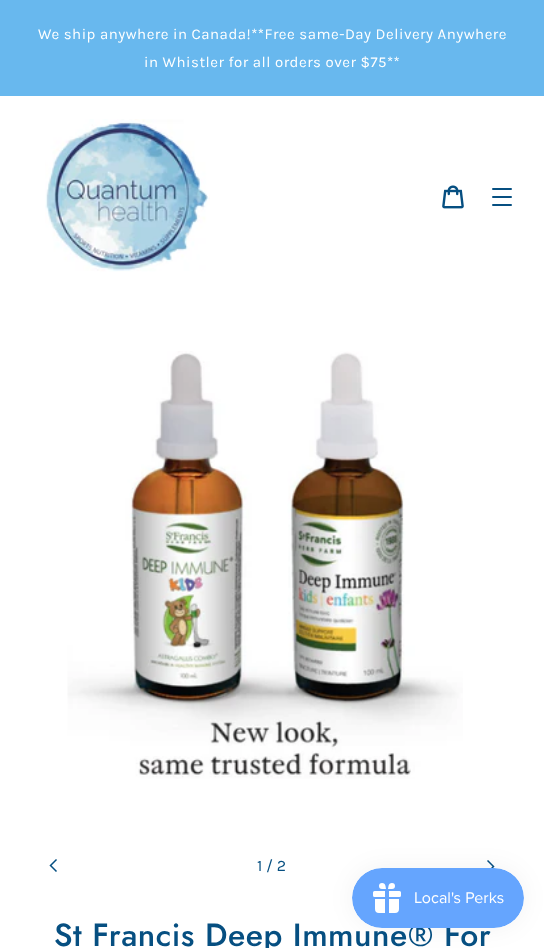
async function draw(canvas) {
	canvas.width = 544;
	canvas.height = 948;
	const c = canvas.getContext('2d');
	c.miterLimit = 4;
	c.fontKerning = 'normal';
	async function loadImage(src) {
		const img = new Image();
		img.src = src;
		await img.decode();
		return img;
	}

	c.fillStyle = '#fff';
	c.fillRect(0, 0, 544, 948);
	c.fillStyle = '#68b8ee';
	c.fillRect(0, 0, 544, 96);
	c.letterSpacing = '0.5px';
	c.font = '15px Karla';
	c.fillStyle = '#fff';
	c.fillText('We ship anywhere in Canada!**Free same-Day Delivery Anywhere', 38, 39);
	c.fillText('in Whistler for all orders over $75**', 144, 67);
	c.drawImage(await loadImage('img1.png'), 45, 119, 165, 153);
	c.drawImage(await loadImage('img2.png'), 442, 185, 22, 24);
	c.fillStyle = '#064f81';
	c.beginPath();
	c.roundRect(492, 196, 20, 2, 1);
	c.fill();
	c.beginPath();
	c.roundRect(492, 188, 20, 2, 1);
	c.fill();
	c.beginPath();
	c.roundRect(492, 204, 20, 2, 1);
	c.fill();
	c.drawImage(await loadImage('img6.png'), 487, 860, 8, 8);
	c.fillStyle = '#0000000d';
	c.filter = 'blur(12.5px)';
	c.beginPath();
	c.roundRect(352, 868, 172, 60, 30);
	c.fill();
	c.filter = 'none';
	c.font = '500 32px Jost';
	c.fillStyle = '#064f81';
	c.fillText('St Francis Deep Immune® For', 54, 946);
	c.drawImage(await loadImage('img3.png'), 352, 868, 172, 60);
	c.drawImage(await loadImage('img4.png'), 67, 351, 396, 428);
	c.drawImage(await loadImage('img5.png'), 49, 859, 8, 13);
	c.letterSpacing = '0px';
	c.font = '16px Karla';
	c.fillText('1 / 2', 257, 871);
}

draw(document.querySelector('canvas'));
